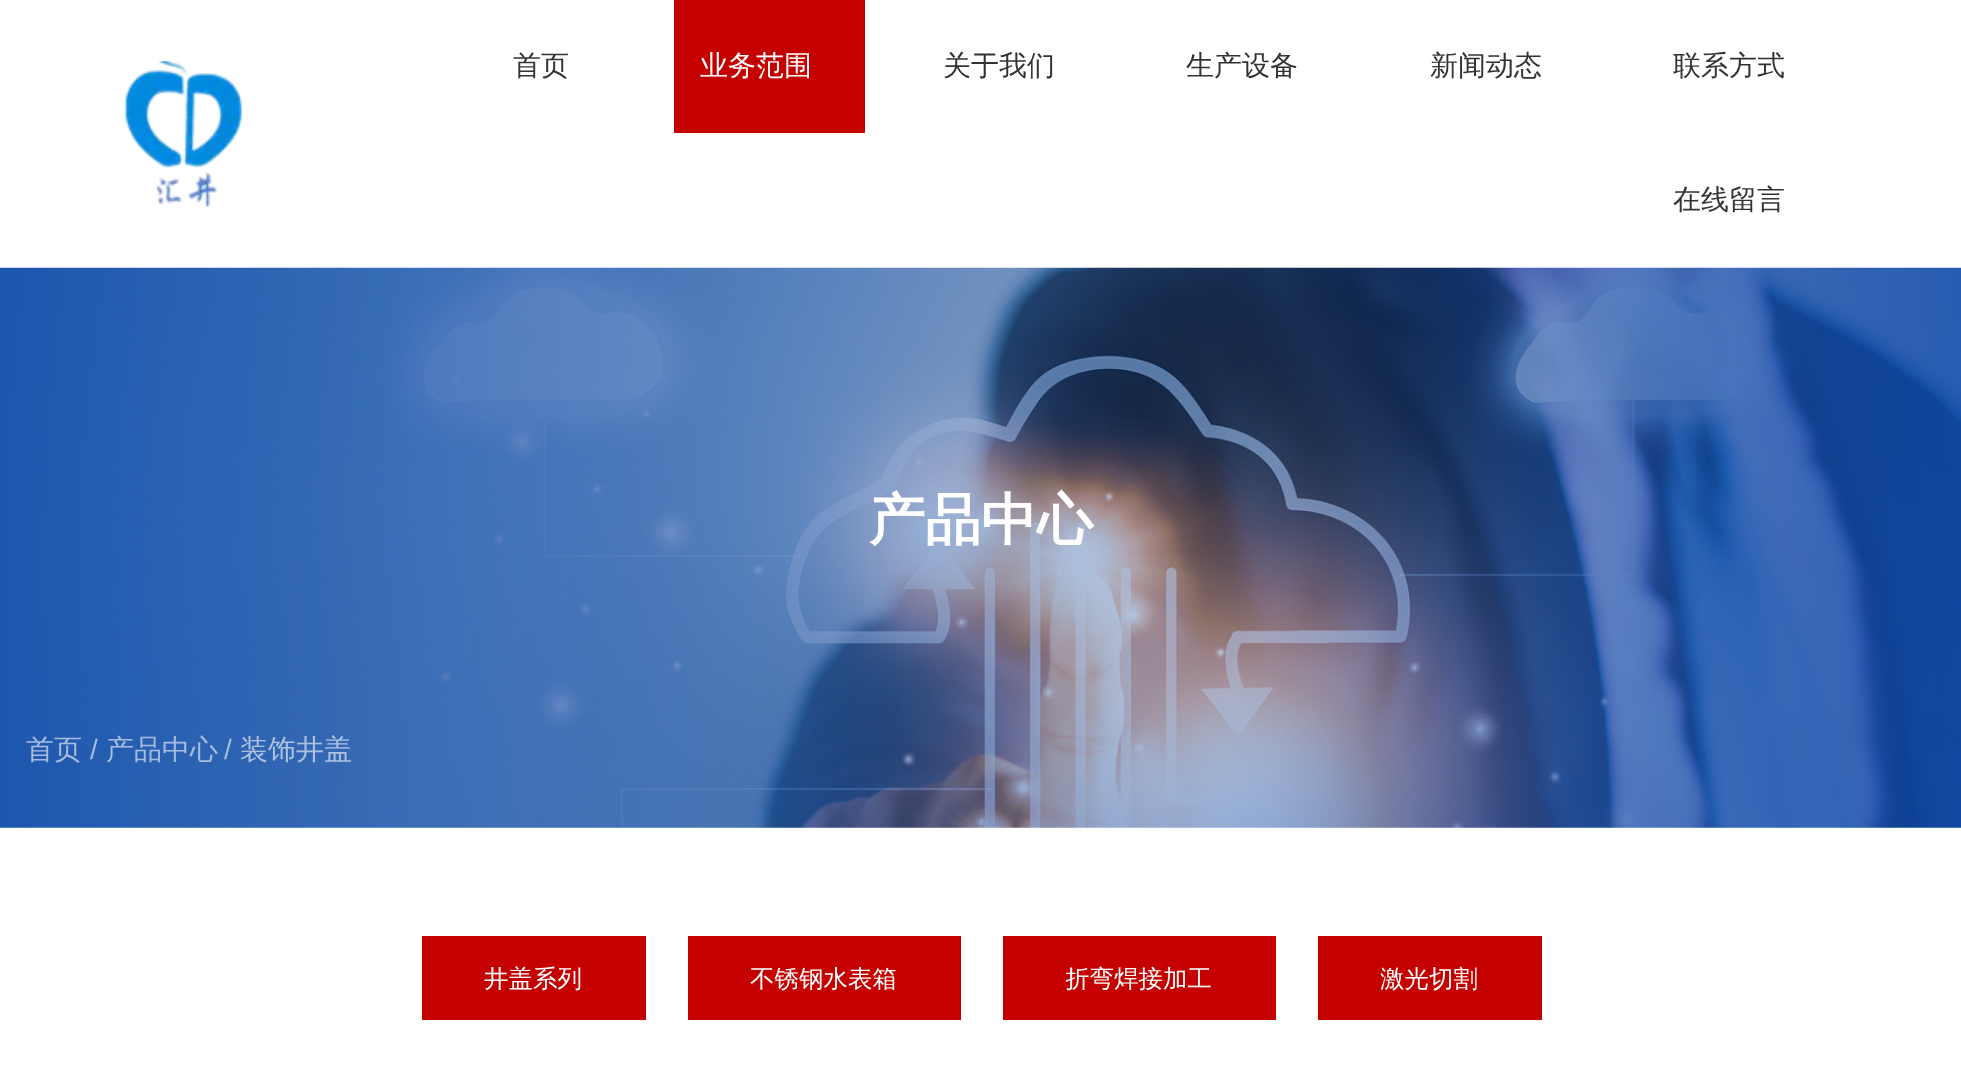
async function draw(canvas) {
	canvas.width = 1961;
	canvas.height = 1072;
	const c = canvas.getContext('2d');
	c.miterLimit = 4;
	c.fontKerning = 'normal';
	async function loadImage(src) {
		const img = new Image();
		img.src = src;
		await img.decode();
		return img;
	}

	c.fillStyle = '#fff';
	c.fillRect(0, 0, 1961, 1072);
	c.drawImage(await loadImage('img1.png'), 124, 61, 119, 146);
	c.font = '500 28px WenQuanYi Zen Hei';
	c.fillStyle = '#333';
	c.fillText('首页', 513, 75);
	c.fillStyle = '#c40000';
	c.fillRect(674, 0, 191, 133);
	c.fillStyle = '#fff';
	c.fillText('业务范围', 700, 75);
	c.fillStyle = '#333';
	for (const [text, x, y] of [
		['关于我们', 943, 75],
		['生产设备', 1186, 75],
		['新闻动态', 1430, 75],
		['联系方式', 1673, 75],
		['在线留言', 1673, 209],
	]) {
		c.fillText(text, x, y);
	}
	c.drawImage(await loadImage('img2.png'), 0, 267, 1961, 561);
	c.font = 'bold 56px WenQuanYi Zen Hei';
	c.fillStyle = '#fff';
	c.fillText('产品中心', 869, 539);
	c.font = '500 28px WenQuanYi Zen Hei';
	c.fillStyle = '#a6bddf';
	c.fillText('首页', 26, 759);
	c.font = '28px Liberation Sans';
	c.fillText('/', 90, 759);
	c.font = '500 28px WenQuanYi Zen Hei';
	c.fillText('产品中心', 106, 759);
	c.font = '28px Liberation Sans';
	c.fillText('/', 224, 759);
	c.font = '500 28px WenQuanYi Zen Hei';
	c.fillStyle = '#adc2e1';
	c.fillText('装饰井盖', 240, 759);
	c.fillStyle = '#c40000';
	c.fillRect(422, 936, 224, 84);
	c.font = '500 24.5px WenQuanYi Zen Hei';
	c.fillStyle = '#fff';
	c.fillText('井盖系列', 484, 987);
	c.fillStyle = '#c40000';
	c.fillRect(688, 936, 273, 84);
	c.fillStyle = '#fff';
	c.fillText('不锈钢水表箱', 750, 987);
	c.fillStyle = '#c40000';
	c.fillRect(1003, 936, 273, 84);
	c.save();
	c.beginPath();
	c.rect(1066, 954, 147, 49);
	c.clip();
	c.fillStyle = '#fff';
	c.fillText('折弯焊接加工', 1065, 987);
	c.restore();
	c.fillRect(1318, 936, 224, 84);
	c.save();
	c.beginPath();
	c.rect(1381, 954, 98, 49);
	c.clip();
	c.fillStyle = '#fff';
	c.fillText('激光切割', 1380, 987);
	c.restore();
}

draw(document.querySelector('canvas'));
